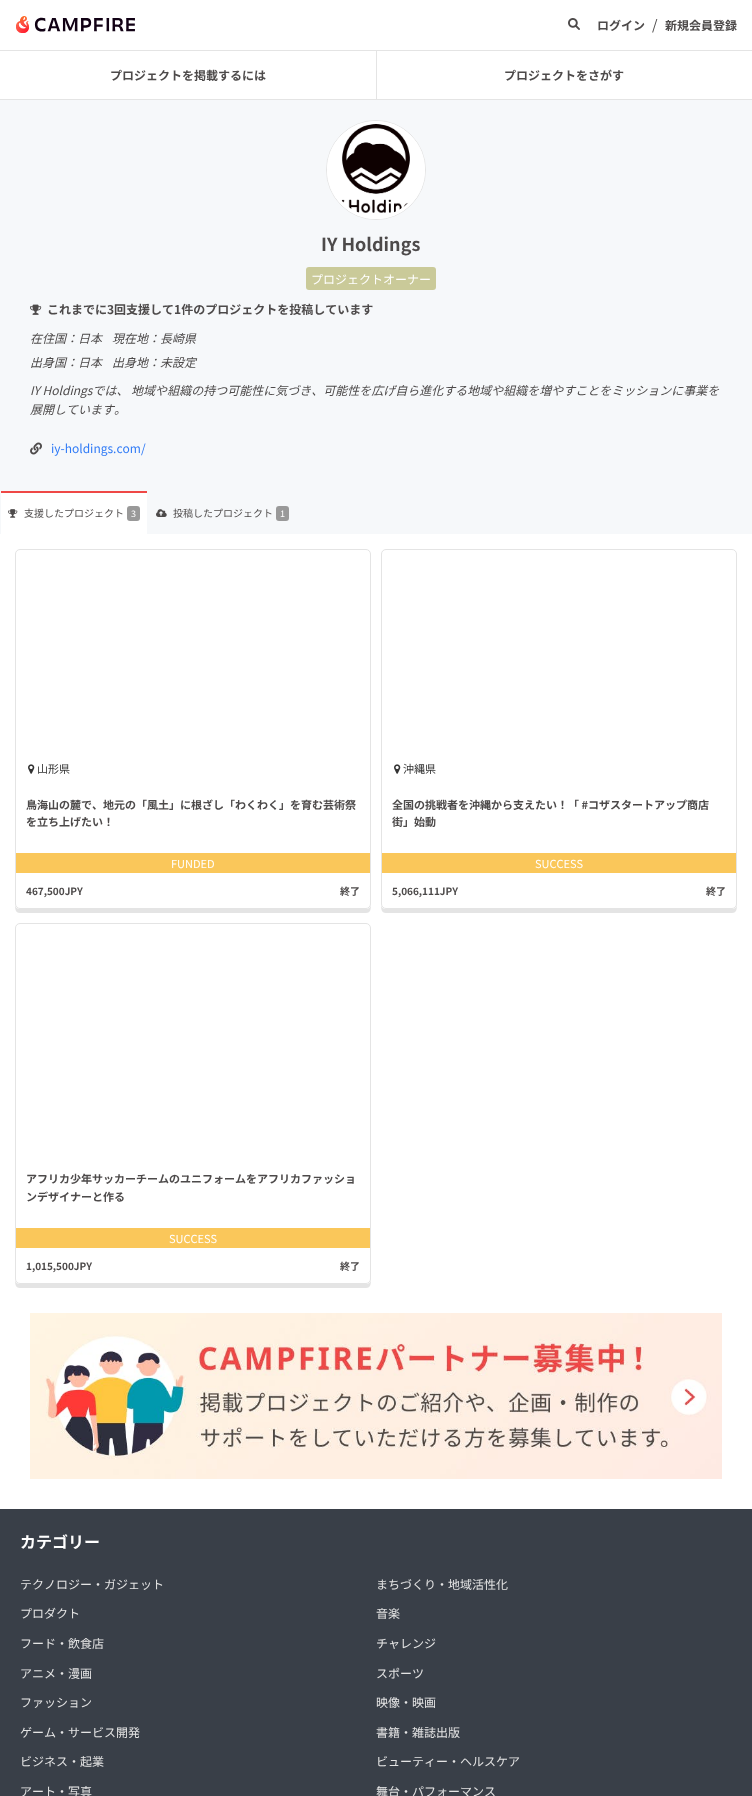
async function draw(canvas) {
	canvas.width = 752;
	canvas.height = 1796;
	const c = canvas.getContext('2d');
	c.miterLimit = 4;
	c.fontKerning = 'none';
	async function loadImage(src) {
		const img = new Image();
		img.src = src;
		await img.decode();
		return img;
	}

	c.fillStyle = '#393f48';
	c.fillRect(0, 0, 752, 1796);
	c.fillStyle = '#fff';
	c.fillRect(0, 0, 752, 99);
	c.drawImage(await loadImage('img1.png'), 16, 16, 119, 17);
	c.drawImage(await loadImage('img2.png'), 568, 18, 12, 12);
	c.font = 'bold 12px Noto Sans JP';
	c.fillStyle = '#4d4a4a';
	c.fillText('ログイン', 597, 30);
	c.font = '14px Noto Sans JP';
	c.fillText('/', 652, 30);
	c.font = 'bold 12px Noto Sans JP';
	c.fillText('新規会員登録', 665, 30);
	c.fillStyle = '#e4e4e4';
	c.fillRect(0, 50, 376, 1);
	c.fillRect(0, 99, 376, 1);
	c.fillStyle = '#4d4a4a';
	c.fillText('プロジェクトを掲載するには', 110, 80);
	for (const [x, y, w, h, color] of [
		[376, 50, 1, 50, '#e4e4e4'],
		[377, 50, 375, 1, '#e4e4e4'],
		[377, 99, 375, 1, '#e4e4e4'],
	]) {
		c.fillStyle = color;
		c.fillRect(x, y, w, h);
	}
	c.fillStyle = '#4d4a4a';
	c.fillText('プロジェクトをさがす', 504, 80);
	c.fillStyle = '#fff';
	c.fillRect(0, 534, 752, 975);
	c.fillStyle = '#f6f8fa';
	c.fillRect(0, 100, 752, 434);
	c.fillStyle = '#fff';
	c.beginPath();
	c.arc(376, 170, 49.5, 0, 2 * Math.PI);
	c.fill();
	c.strokeStyle = '#e4e4e4';
	c.stroke();
	c.beginPath();
	c.arc(376, 170, 47.5, 0, 2 * Math.PI);
	c.strokeStyle = '#fff';
	c.lineWidth = 3;
	c.stroke();
	c.drawImage(await loadImage('img3.png'), 341, 124, 69, 89);
	c.font = 'bold 18px Noto Sans JP';
	c.fillStyle = '#4d4a4a';
	c.fillText('IY Holdings', 321, 251);
	c.fillStyle = '#caca99';
	c.beginPath();
	c.roundRect(306, 267, 130, 23, 3);
	c.fill();
	c.font = '12px Noto Sans JP';
	c.fillStyle = '#fff';
	c.fillText('プロジェクトオーナー', 311, 284);
	c.drawImage(await loadImage('img4.png'), 30, 304, 12, 11);
	c.font = 'bold 12px Noto Sans JP';
	c.fillStyle = '#4d4a4a';
	c.fillText('これまでに3回支援して1件のプロジェクトを投稿しています', 47, 314);
	c.font = 'italic 12px Noto Sans JP';
	for (const [text, x, y] of [
		['在住国：日本', 30, 343],
		['現在地：長崎県', 112, 343],
		['出身国：日本', 30, 367],
		['出身地：未設定', 112, 367],
		['IY Holdingsでは、 地域や組織の持つ可能性に気づき、可能性を広げ自ら進化する地域や組織を増やすことをミッションに事業を', 30, 395],
		['展開しています。', 30, 414],
	]) {
		c.fillText(text, x, y);
	}
	c.drawImage(await loadImage('img5.png'), 30, 442, 12, 13);
	c.font = '12px Noto Sans JP';
	c.fillStyle = '#307bf6';
	c.fillText('iy-holdings.com/', 51, 453);
	c.fillStyle = '#fff';
	c.fillRect(1, 493, 146, 41);
	c.fillStyle = '#ef4846';
	c.fillRect(1, 491, 146, 2);
	c.drawImage(await loadImage('img6.png'), 8, 509, 10, 9);
	c.font = '10px Noto Sans JP';
	c.fillStyle = '#4d4a4a';
	c.fillText('支援したプロジェクト', 24, 517);
	c.fillStyle = '#999';
	c.beginPath();
	c.roundRect(127, 506, 13, 15, 3);
	c.fill();
	c.font = '9px Noto Sans JP';
	c.fillStyle = '#fff';
	c.fillText('3', 131, 517);
	c.drawImage(await loadImage('img7.png'), 156, 509, 11, 8);
	c.font = '10px Noto Sans JP';
	c.fillStyle = '#4d4a4a';
	c.fillText('投稿したプロジェクト', 173, 517);
	c.fillStyle = '#999';
	c.beginPath();
	c.roundRect(276, 506, 13, 15, 3);
	c.fill();
	c.font = '9px Noto Sans JP';
	c.fillStyle = '#fff';
	c.fillText('1', 280, 517);
	c.fillStyle = '#e4e4e4';
	c.beginPath();
	c.moveTo(15, 904);
	c.bezierCurveTo(15, 908, 15, 913, 20, 913);
	c.lineTo(366, 913);
	c.bezierCurveTo(371, 913, 371, 908, 371, 904);
	c.bezierCurveTo(371, 907, 369, 909, 366, 909);
	c.lineTo(20, 909);
	c.bezierCurveTo(17, 909, 15, 907, 15, 904);
	c.closePath();
	c.fill();
	c.fillStyle = '#fff';
	c.beginPath();
	c.roundRect(15.5, 549.5, 355, 359, 4.5);
	c.fill();
	c.strokeStyle = '#e4e4e4';
	c.lineWidth = 1;
	c.stroke();
	c.drawImage(await loadImage('img8.png'), 28, 764, 7, 10);
	c.font = '11px Noto Sans JP';
	c.fillStyle = '#333';
	c.fillText('山形県', 37, 773);
	c.font = 'bold 11px Noto Sans JP';
	c.fillStyle = '#4d4a4a';
	c.fillText('鳥海山の麓で、地元の「風土」に根ざし「わくわく」を育む芸術祭', 26, 809);
	c.fillText('を立ち上げたい！', 26, 826);
	c.fillStyle = '#fac75a';
	c.fillRect(16, 853, 354, 20);
	c.font = '11px Noto Sans JP';
	c.fillStyle = '#fff';
	c.fillText('FUNDED', 171, 868);
	c.font = 'bold 10px Noto Sans JP';
	c.fillStyle = '#4d4a4a';
	c.fillText('467,500JPY', 26, 895);
	c.fillText('終了', 340, 895);
	c.fillStyle = '#e4e4e4';
	c.beginPath();
	c.moveTo(381, 904);
	c.bezierCurveTo(381, 908, 381, 913, 386, 913);
	c.lineTo(732, 913);
	c.bezierCurveTo(737, 913, 737, 908, 737, 904);
	c.bezierCurveTo(737, 907, 735, 909, 732, 909);
	c.lineTo(386, 909);
	c.bezierCurveTo(383, 909, 381, 907, 381, 904);
	c.closePath();
	c.fill();
	c.fillStyle = '#fff';
	c.beginPath();
	c.roundRect(381.5, 549.5, 355, 359, 4.5);
	c.fill();
	c.stroke();
	c.drawImage(await loadImage('img8.png'), 394, 764, 7, 10);
	c.font = '11px Noto Sans JP';
	c.fillStyle = '#333';
	c.fillText('沖縄県', 403, 773);
	c.font = 'bold 11px Noto Sans JP';
	c.fillStyle = '#4d4a4a';
	c.fillText('全国の挑戦者を沖縄から支えたい！「 #コザスタートアップ商店', 392, 809);
	c.fillText('街」始動', 392, 826);
	c.fillStyle = '#fac75a';
	c.fillRect(382, 853, 354, 20);
	c.font = '11px Noto Sans JP';
	c.fillStyle = '#fff';
	c.fillText('SUCCESS', 535, 868);
	c.font = 'bold 10px Noto Sans JP';
	c.fillStyle = '#4d4a4a';
	c.fillText('5,066,111JPY', 392, 895);
	c.fillText('終了', 706, 895);
	c.fillStyle = '#e4e4e4';
	c.beginPath();
	c.moveTo(15, 1279);
	c.bezierCurveTo(15, 1283, 15, 1288, 20, 1288);
	c.lineTo(366, 1288);
	c.bezierCurveTo(371, 1288, 371, 1283, 371, 1279);
	c.bezierCurveTo(371, 1282, 369, 1284, 366, 1284);
	c.lineTo(20, 1284);
	c.bezierCurveTo(17, 1284, 15, 1282, 15, 1279);
	c.closePath();
	c.fill();
	c.fillStyle = '#fff';
	c.beginPath();
	c.roundRect(15.5, 923.5, 355, 360, 4.5);
	c.fill();
	c.stroke();
	c.font = 'bold 11px Noto Sans JP';
	c.fillStyle = '#4d4a4a';
	c.fillText('アフリカ少年サッカーチームのユニフォームをアフリカファッショ', 26, 1183);
	c.fillText('ンデザイナーと作る', 26, 1201);
	c.fillStyle = '#fac75a';
	c.fillRect(16, 1228, 354, 20);
	c.font = '11px Noto Sans JP';
	c.fillStyle = '#fff';
	c.fillText('SUCCESS', 169, 1243);
	c.font = 'bold 10px Noto Sans JP';
	c.fillStyle = '#4d4a4a';
	c.fillText('1,015,500JPY', 26, 1270);
	c.fillText('終了', 340, 1270);
	c.drawImage(await loadImage('img9.png'), 30, 1313, 692, 166);
	c.font = 'bold 16px Noto Sans JP';
	c.fillStyle = '#fff';
	c.fillText('カテゴリー', 20, 1548);
	c.font = '12px Noto Sans JP';
	c.fillStyle = '#e4e4e4';
	for (const [text, x, y] of [
		['テクノロジー・ガジェット', 20, 1589],
		['プロダクト', 20, 1618],
		['フード・飲食店', 20, 1648],
		['アニメ・漫画', 20, 1678],
		['ファッション', 20, 1707],
		['ゲーム・サービス開発', 20, 1737],
		['ビジネス・起業', 20, 1766],
		['アート・写真', 20, 1796],
		['まちづくり・地域活性化', 376, 1589],
		['音楽', 376, 1618],
		['チャレンジ', 376, 1648],
		['スポーツ', 376, 1678],
		['映像・映画', 376, 1707],
		['書籍・雑誌出版', 376, 1737],
		['ビューティー・ヘルスケア', 376, 1766],
		['舞台・パフォーマンス', 376, 1796],
	]) {
		c.fillText(text, x, y);
	}
}

draw(document.querySelector('canvas'));
